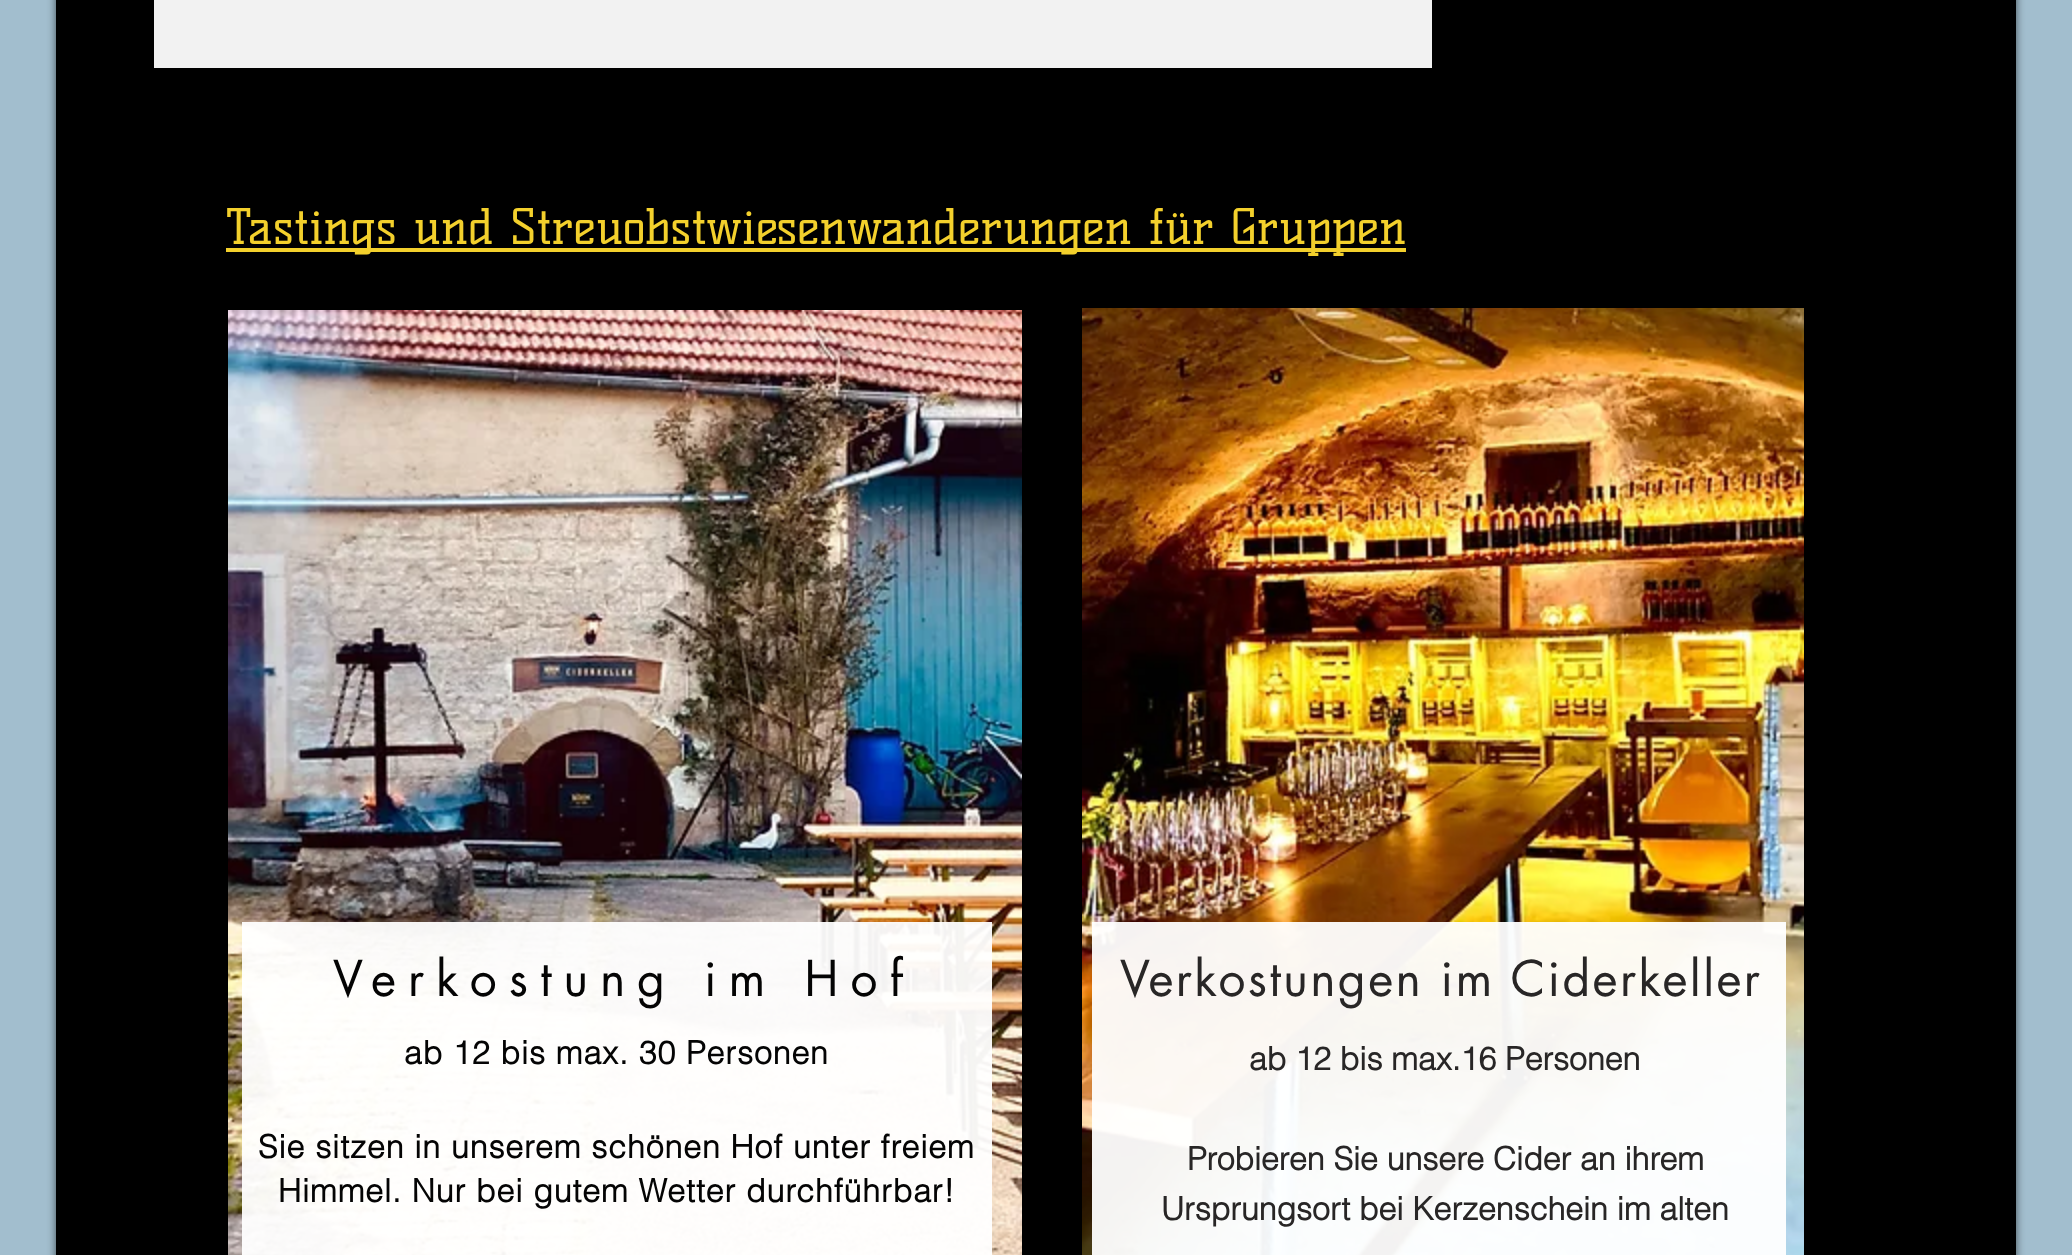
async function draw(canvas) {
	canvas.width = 2072;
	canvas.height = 1255;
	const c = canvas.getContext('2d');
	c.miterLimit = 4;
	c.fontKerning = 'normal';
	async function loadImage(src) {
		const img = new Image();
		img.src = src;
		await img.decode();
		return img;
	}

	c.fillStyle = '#a2bece';
	c.fillRect(0, 0, 2072, 1255);
	c.fillStyle = '#00000099';
	c.filter = 'blur(4px)';
	c.beginPath();
	c.rect(56, -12, 1960, 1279);
	c.fill();
	c.filter = 'none';
	for (const [x, y, w, h, color] of [
		[56, 0, 1960, 1255, '#000'],
		[154, 0, 1278, 68, '#f2f2f2'],
		[226, 248, 1180, 4, '#f3d02c'],
	]) {
		c.fillStyle = color;
		c.fillRect(x, y, w, h);
	}
	c.font = '48px Kelly Slab';
	c.fillText('Tastings und Streuobstwiesenwanderungen für Gruppen', 226, 244);
	c.drawImage(await loadImage('img1.png'), 228, 310, 794, 945);
	c.drawImage(await loadImage('img2.png'), 1082, 308, 722, 947);
	c.fillStyle = '#fffffff2';
	c.fillRect(242, 922, 750, 333);
	c.letterSpacing = '12px';
	c.font = '48px futura';
	c.fillStyle = '#040404';
	c.fillText('Verkostung im Hof', 333, 996);
	c.letterSpacing = '0.95px';
	c.font = 'bold 32px helvetica';
	for (const [text, x, y] of [
		['ab 12 bis max. 30 Personen', 404, 1064],
		['Sie sitzen in unserem schönen Hof unter freiem', 258, 1158],
		['Himmel. Nur bei gutem Wetter durchführbar!', 278, 1202],
	]) {
		c.fillText(text, x, y);
	}
	c.fillStyle = '#fffffff2';
	c.fillRect(1092, 922, 694, 333);
	c.letterSpacing = '2.4px';
	c.font = '48px futura';
	c.fillStyle = '#282626';
	c.fillText('Verkostungen im Ciderkeller', 1120, 996);
	c.letterSpacing = '0px';
	c.font = 'bold 32px helvetica';
	for (const [text, x, y] of [
		['ab 12 bis max.16 Personen', 1249, 1070],
		['Probieren Sie unsere Cider an ihrem', 1187, 1170],
		['Ursprungsort bei Kerzenschein im alten', 1161, 1220],
	]) {
		c.fillText(text, x, y);
	}
}

draw(document.querySelector('canvas'));
